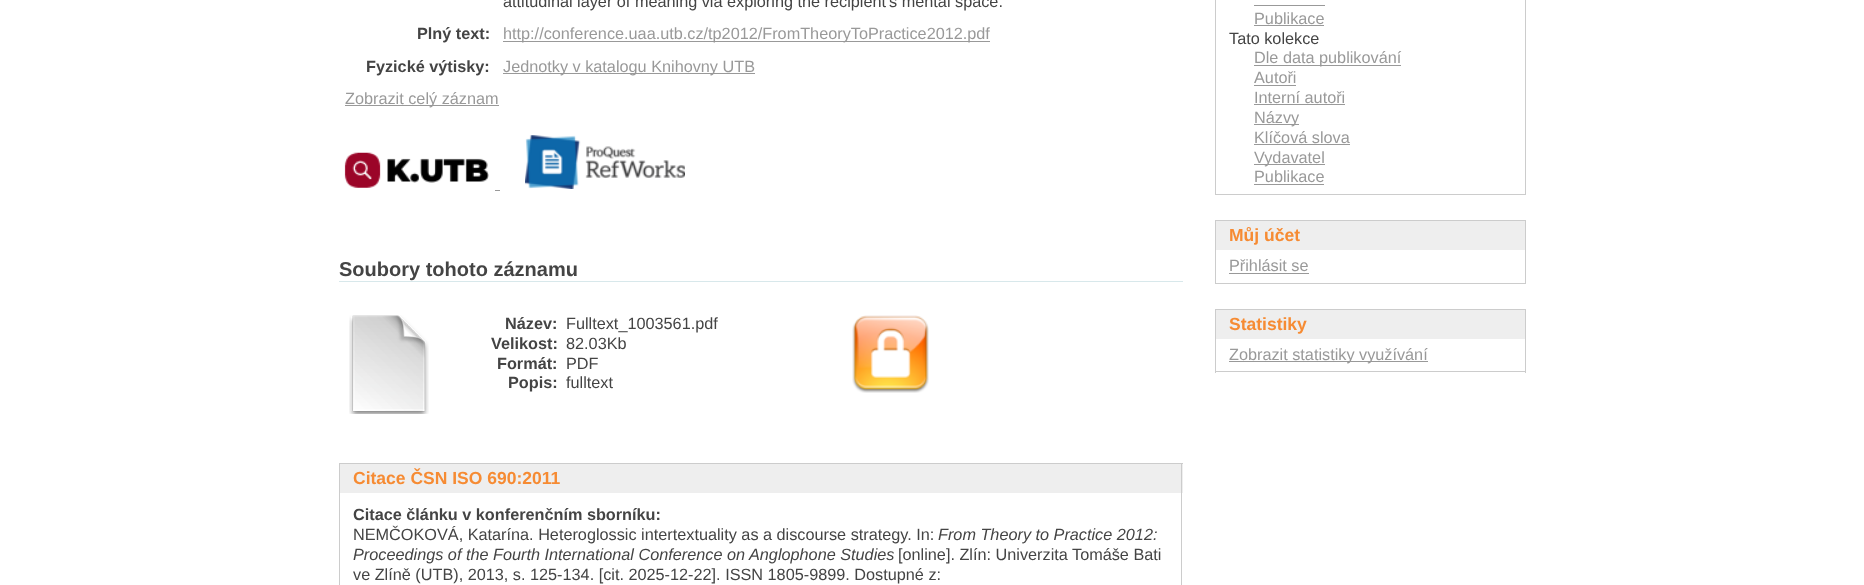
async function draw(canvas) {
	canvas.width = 1864;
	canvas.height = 585;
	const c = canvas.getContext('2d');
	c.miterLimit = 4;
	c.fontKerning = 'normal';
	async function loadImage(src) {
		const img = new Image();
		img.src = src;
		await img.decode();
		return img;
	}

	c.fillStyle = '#fff';
	c.fillRect(0, 0, 1864, 585);
	c.font = '16.25px Liberation Sans';
	c.fillStyle = '#444';
	c.fillText('attitudinal layer of meaning via exploring the recipient\'s mental space.', 503, 7);
	c.font = 'bold 16.25px Liberation Sans';
	c.fillText('Plný text:', 417, 39);
	c.fillStyle = '#999';
	c.fillRect(503, 41, 487, 1);
	c.font = '16.25px Liberation Sans';
	c.fillText('http://conference.uaa.utb.cz/tp2012/FromTheoryToPractice2012.pdf', 503, 39);
	c.font = 'bold 16.25px Liberation Sans';
	c.fillStyle = '#444';
	c.fillText('Fyzické výtisky:', 366, 72);
	c.fillStyle = '#999';
	c.fillRect(503, 73, 252, 1);
	c.font = '16.25px Liberation Sans';
	c.fillText('Jednotky v katalogu Knihovny UTB', 503, 72);
	c.fillRect(345, 105, 154, 1);
	c.fillText('Zobrazit celý záznam', 345, 104);
	c.drawImage(await loadImage('img1.png'), 344, 152, 145, 36);
	c.drawImage(await loadImage('img2.png'), 525, 135, 160, 54);
	c.fillRect(495, 190, 5, 1);
	c.fillStyle = '#d8e8eb';
	c.fillRect(339, 281, 844, 1);
	c.font = 'bold 20px Liberation Sans';
	c.fillStyle = '#444';
	c.fillText('Soubory tohoto záznamu', 339, 276);
	c.drawImage(await loadImage('img3.png'), 349, 315, 80, 99);
	c.font = 'bold 16.25px Liberation Sans';
	c.fillText('Název:', 505, 329);
	c.font = '16.25px Liberation Sans';
	c.fillText('Fulltext_1003561.pdf', 566, 329);
	c.font = 'bold 16.25px Liberation Sans';
	c.fillText('Velikost:', 491, 349);
	c.font = '16.25px Liberation Sans';
	c.fillText('82.03Kb', 566, 349);
	c.font = 'bold 16.25px Liberation Sans';
	c.fillText('Formát:', 497, 369);
	c.font = '16.25px Liberation Sans';
	c.fillText('PDF', 566, 369);
	c.font = 'bold 16.25px Liberation Sans';
	c.fillText('Popis:', 508, 388);
	c.font = '16.25px Liberation Sans';
	c.fillText('fulltext', 566, 388);
	c.drawImage(await loadImage('img4.png'), 852, 315, 77, 78);
	for (const [x, y, w, h, color] of [
		[340, 464, 843, 29, '#eee'],
		[339, 463, 844, 1, '#ccc'],
		[1181, 463, 1, 122, '#ccc'],
		[339, 463, 1, 122, '#ccc'],
	]) {
		c.fillStyle = color;
		c.fillRect(x, y, w, h);
	}
	c.font = 'bold 17.5px Liberation Sans';
	c.fillStyle = '#f68b33';
	c.fillText('Citace ČSN ISO 690:2011', 353, 484);
	c.font = 'bold 16.25px Liberation Sans';
	c.fillStyle = '#444';
	c.fillText('Citace článku v konferenčním sborníku:', 353, 520);
	c.font = '16.25px Liberation Sans';
	c.fillText('NEMČOKOVÁ, Katarína. Heteroglossic intertextuality as a discourse strategy. In:', 353, 540);
	c.font = 'italic 16.25px Liberation Sans';
	c.fillText('From Theory to Practice 2012:', 938, 540);
	c.fillText('Proceedings of the Fourth International Conference on Anglophone Studies', 353, 560);
	c.font = '16.25px Liberation Sans';
	c.fillText('[online]. Zlín: Univerzita Tomáše Bati', 898, 560);
	c.fillText('ve Zlíně (UTB), 2013, s. 125-134. [cit. 2025-12-22]. ISSN 1805-9899. Dostupné z:', 353, 580);
	for (const [x, y, w, h, color] of [
		[1525, 0, 1, 195, '#ccc'],
		[1215, 194, 311, 1, '#ccc'],
		[1215, 0, 1, 195, '#ccc'],
		[1254, 5, 71, 1, '#999'],
	]) {
		c.fillStyle = color;
		c.fillRect(x, y, w, h);
	}
	c.fillText('Publikace', 1254, 24);
	c.fillRect(1254, 25, 70, 1);
	c.fillStyle = '#444';
	c.fillText('Tato kolekce', 1229, 44);
	c.fillStyle = '#999';
	c.fillRect(1254, 65, 147, 1);
	c.fillText('Dle data publikování', 1254, 63);
	c.fillText('Autoři', 1254, 83);
	c.fillRect(1254, 85, 42, 1);
	c.fillText('Interní autoři', 1254, 103);
	c.fillRect(1254, 104, 91, 1);
	c.fillRect(1254, 124, 45, 1);
	c.fillText('Názvy', 1254, 123);
	c.fillText('Klíčová slova', 1254, 143);
	c.fillRect(1254, 144, 96, 1);
	c.fillRect(1254, 164, 71, 1);
	c.fillText('Vydavatel', 1254, 163);
	c.fillText('Publikace', 1254, 182);
	for (const [x, y, w, h, color] of [
		[1254, 184, 70, 1, '#999'],
		[1216, 221, 309, 29, '#eee'],
		[1215, 220, 311, 1, '#ccc'],
		[1525, 220, 1, 64, '#ccc'],
		[1215, 220, 1, 30, '#ccc'],
	]) {
		c.fillStyle = color;
		c.fillRect(x, y, w, h);
	}
	c.font = 'bold 17.5px Liberation Sans';
	c.fillStyle = '#f68b33';
	c.fillText('Můj účet', 1229, 241);
	c.fillStyle = '#ccc';
	c.fillRect(1215, 283, 311, 1);
	c.fillRect(1215, 250, 1, 34);
	c.font = '16.25px Liberation Sans';
	c.fillStyle = '#999';
	c.fillText('Přihlásit se', 1229, 271);
	for (const [x, y, w, h, color] of [
		[1229, 273, 80, 1, '#999'],
		[1216, 310, 309, 29, '#eee'],
		[1215, 309, 311, 1, '#ccc'],
		[1525, 309, 1, 64, '#ccc'],
		[1215, 309, 1, 30, '#ccc'],
	]) {
		c.fillStyle = color;
		c.fillRect(x, y, w, h);
	}
	c.font = 'bold 17.5px Liberation Sans';
	c.fillStyle = '#f68b33';
	c.fillText('Statistiky', 1229, 330);
	for (const [x, y, w, h, color] of [
		[1215, 371, 311, 1, '#ccc'],
		[1215, 339, 1, 34, '#ccc'],
		[1229, 361, 199, 1, '#999'],
	]) {
		c.fillStyle = color;
		c.fillRect(x, y, w, h);
	}
	c.font = '16.25px Liberation Sans';
	c.fillText('Zobrazit statistiky využívání', 1229, 360);
}

draw(document.querySelector('canvas'));
